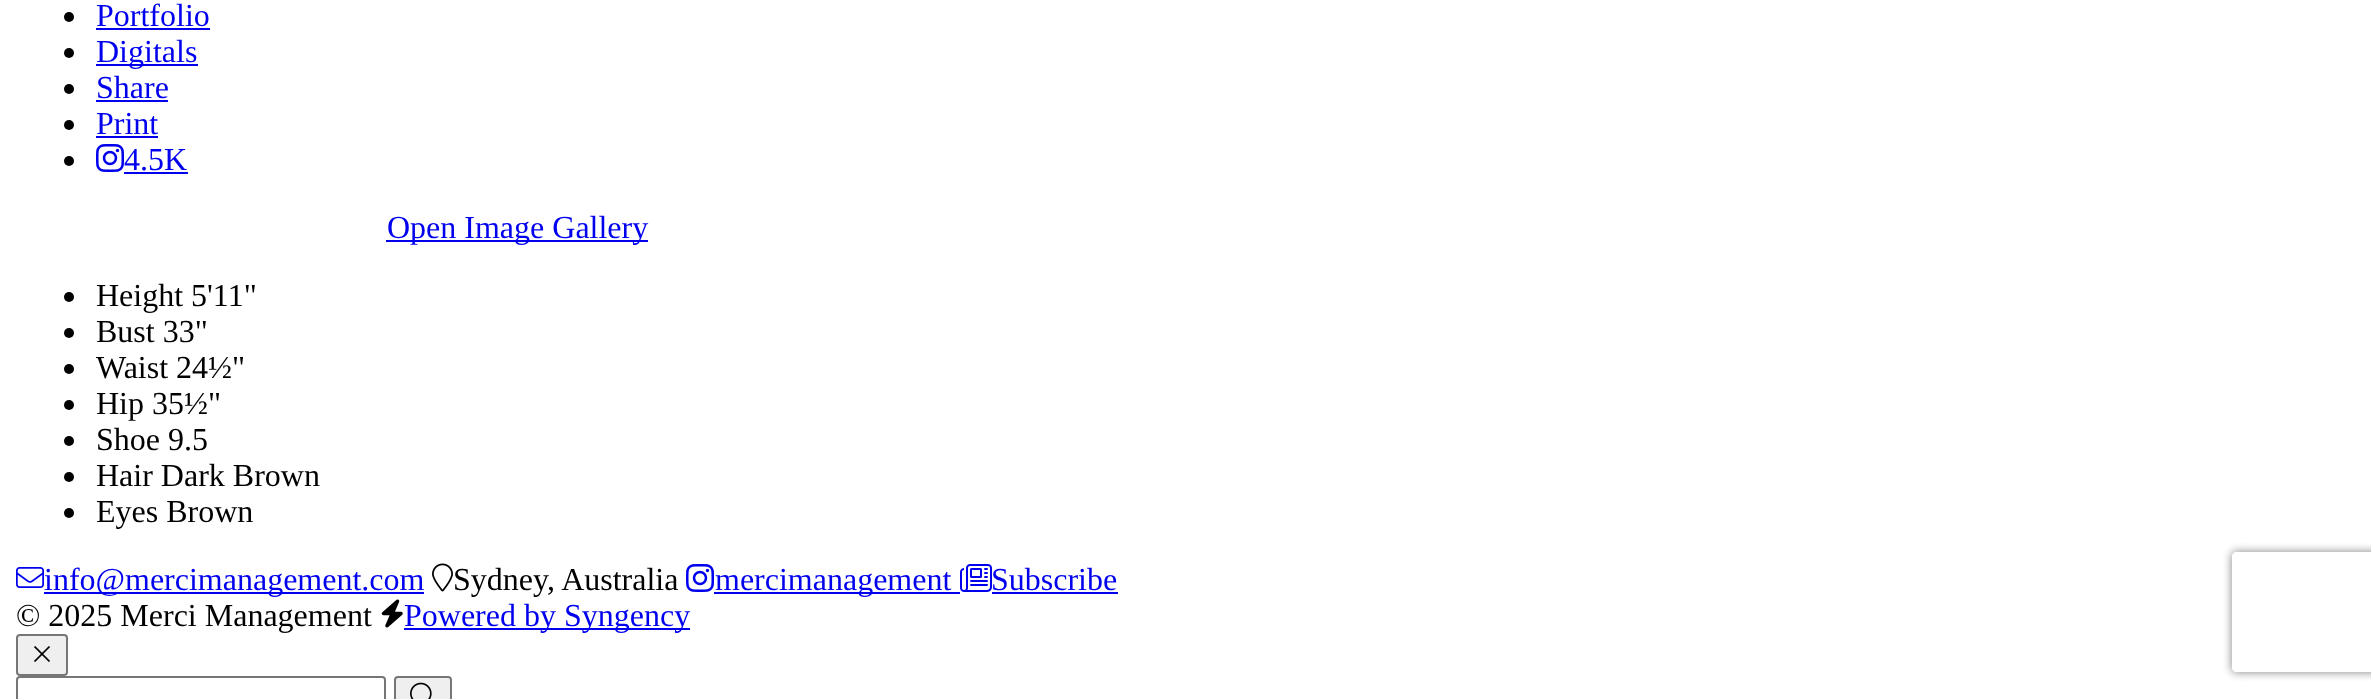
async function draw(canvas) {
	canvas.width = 2371;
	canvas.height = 699;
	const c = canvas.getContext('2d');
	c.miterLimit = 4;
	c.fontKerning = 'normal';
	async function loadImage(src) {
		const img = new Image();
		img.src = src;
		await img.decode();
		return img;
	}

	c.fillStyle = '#fff';
	c.fillRect(0, 0, 2371, 699);
	c.fillStyle = '#000';
	c.beginPath();
	c.arc(69, 17, 5, 0, 2 * Math.PI);
	c.fill();
	c.font = '32px Liberation Serif';
	c.fillStyle = '#00e';
	c.fillText('Portfolio', 96, 26);
	c.fillRect(96, 28, 114, 2);
	c.fillStyle = '#000';
	c.beginPath();
	c.arc(69, 53, 5, 0, 2 * Math.PI);
	c.fill();
	c.fillStyle = '#00e';
	c.fillRect(96, 64, 102, 2);
	c.fillText('Digitals', 96, 62);
	c.fillStyle = '#000';
	c.beginPath();
	c.arc(69, 89, 5, 0, 2 * Math.PI);
	c.fill();
	c.fillStyle = '#00e';
	c.fillText('Share', 96, 98);
	c.fillRect(96, 100, 72, 2);
	c.fillStyle = '#000';
	c.beginPath();
	c.arc(69, 125, 5, 0, 2 * Math.PI);
	c.fill();
	c.fillStyle = '#00e';
	c.fillText('Print', 96, 134);
	c.fillRect(96, 136, 62, 2);
	c.fillStyle = '#000';
	c.beginPath();
	c.arc(69, 161, 5, 0, 2 * Math.PI);
	c.fill();
	c.drawImage(await loadImage('img1.png'), 96, 144, 28, 28);
	c.fillStyle = '#00e';
	c.fillText('4.5K', 124, 170);
	c.fillRect(124, 172, 64, 2);
	c.fillRect(386, 240, 262, 2);
	c.fillText('Open Image Gallery', 387, 238);
	c.fillStyle = '#000';
	c.beginPath();
	c.arc(69, 297, 5, 0, 2 * Math.PI);
	c.fill();
	c.fillText('Height 5\'11"', 96, 306);
	c.beginPath();
	c.arc(69, 333, 5, 0, 2 * Math.PI);
	c.fill();
	c.fillText('Bust 33"', 96, 342);
	c.beginPath();
	c.arc(69, 369, 5, 0, 2 * Math.PI);
	c.fill();
	c.fillText('Waist 24½"', 96, 378);
	c.beginPath();
	c.arc(69, 405, 5, 0, 2 * Math.PI);
	c.fill();
	c.fillText('Hip 35½"', 96, 414);
	c.beginPath();
	c.arc(69, 441, 5, 0, 2 * Math.PI);
	c.fill();
	c.fillText('Shoe 9.5', 96, 450);
	c.beginPath();
	c.arc(69, 477, 5, 0, 2 * Math.PI);
	c.fill();
	c.fillText('Hair Dark Brown', 96, 486);
	c.beginPath();
	c.arc(69, 513, 5, 0, 2 * Math.PI);
	c.fill();
	c.fillText('Eyes Brown', 96, 522);
	c.drawImage(await loadImage('img2.png'), 16, 567, 28, 21);
	c.fillStyle = '#00e';
	c.fillRect(44, 592, 380, 2);
	c.fillText('info@mercimanagement.com', 44, 590);
	c.drawImage(await loadImage('img3.png'), 432, 563, 21, 29);
	c.fillStyle = '#000';
	c.fillText('Sydney, Australia', 453, 590);
	c.drawImage(await loadImage('img1.png'), 686, 564, 28, 28);
	c.fillStyle = '#00e';
	c.fillRect(714, 592, 246, 2);
	c.fillText('mercimanagement', 715, 590);
	c.drawImage(await loadImage('img4.png'), 960, 564, 32, 28);
	c.fillText('Subscribe', 991, 590);
	c.fillRect(992, 592, 126, 2);
	c.fillStyle = '#000';
	c.fillText('© 2025 Merci Management', 16, 626);
	c.drawImage(await loadImage('img5.png'), 381, 599, 22, 29);
	c.fillStyle = '#00e';
	c.fillRect(404, 628, 286, 2);
	c.fillText('Powered by Syngency', 404, 626);
	c.save();
	c.beginPath();
	c.moveTo(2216, 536);
	c.lineTo(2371, 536);
	c.lineTo(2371, 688);
	c.lineTo(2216, 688);
	c.closePath();
	c.moveTo(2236, 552);
	c.lineTo(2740, 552);
	c.bezierCurveTo(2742, 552, 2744, 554, 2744, 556);
	c.lineTo(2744, 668);
	c.bezierCurveTo(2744, 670, 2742, 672, 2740, 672);
	c.lineTo(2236, 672);
	c.bezierCurveTo(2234, 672, 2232, 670, 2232, 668);
	c.lineTo(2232, 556);
	c.bezierCurveTo(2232, 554, 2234, 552, 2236, 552);
	c.closePath();
	c.clip('evenodd');
	c.fillStyle = '#808080';
	c.filter = 'blur(5px)';
	c.beginPath();
	c.roundRect(2232, 552, 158, 120, 4);
	c.fill();
	c.filter = 'none';
	c.restore();
	c.fillStyle = '#efefef';
	c.beginPath();
	c.roundRect(17, 635, 50, 40, 3);
	c.fill();
	c.strokeStyle = '#767676';
	c.lineWidth = 2;
	c.stroke();
	c.drawImage(await loadImage('img6.png'), 34, 646, 16, 16);
	c.beginPath();
	c.roundRect(17, 677, 368, 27, 3);
	c.stroke();
	c.beginPath();
	c.roundRect(395, 677, 56, 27, 3);
	c.fill();
	c.stroke();
	c.drawImage(await loadImage('img7.png'), 410, 682, 22, 17);
}

draw(document.querySelector('canvas'));
